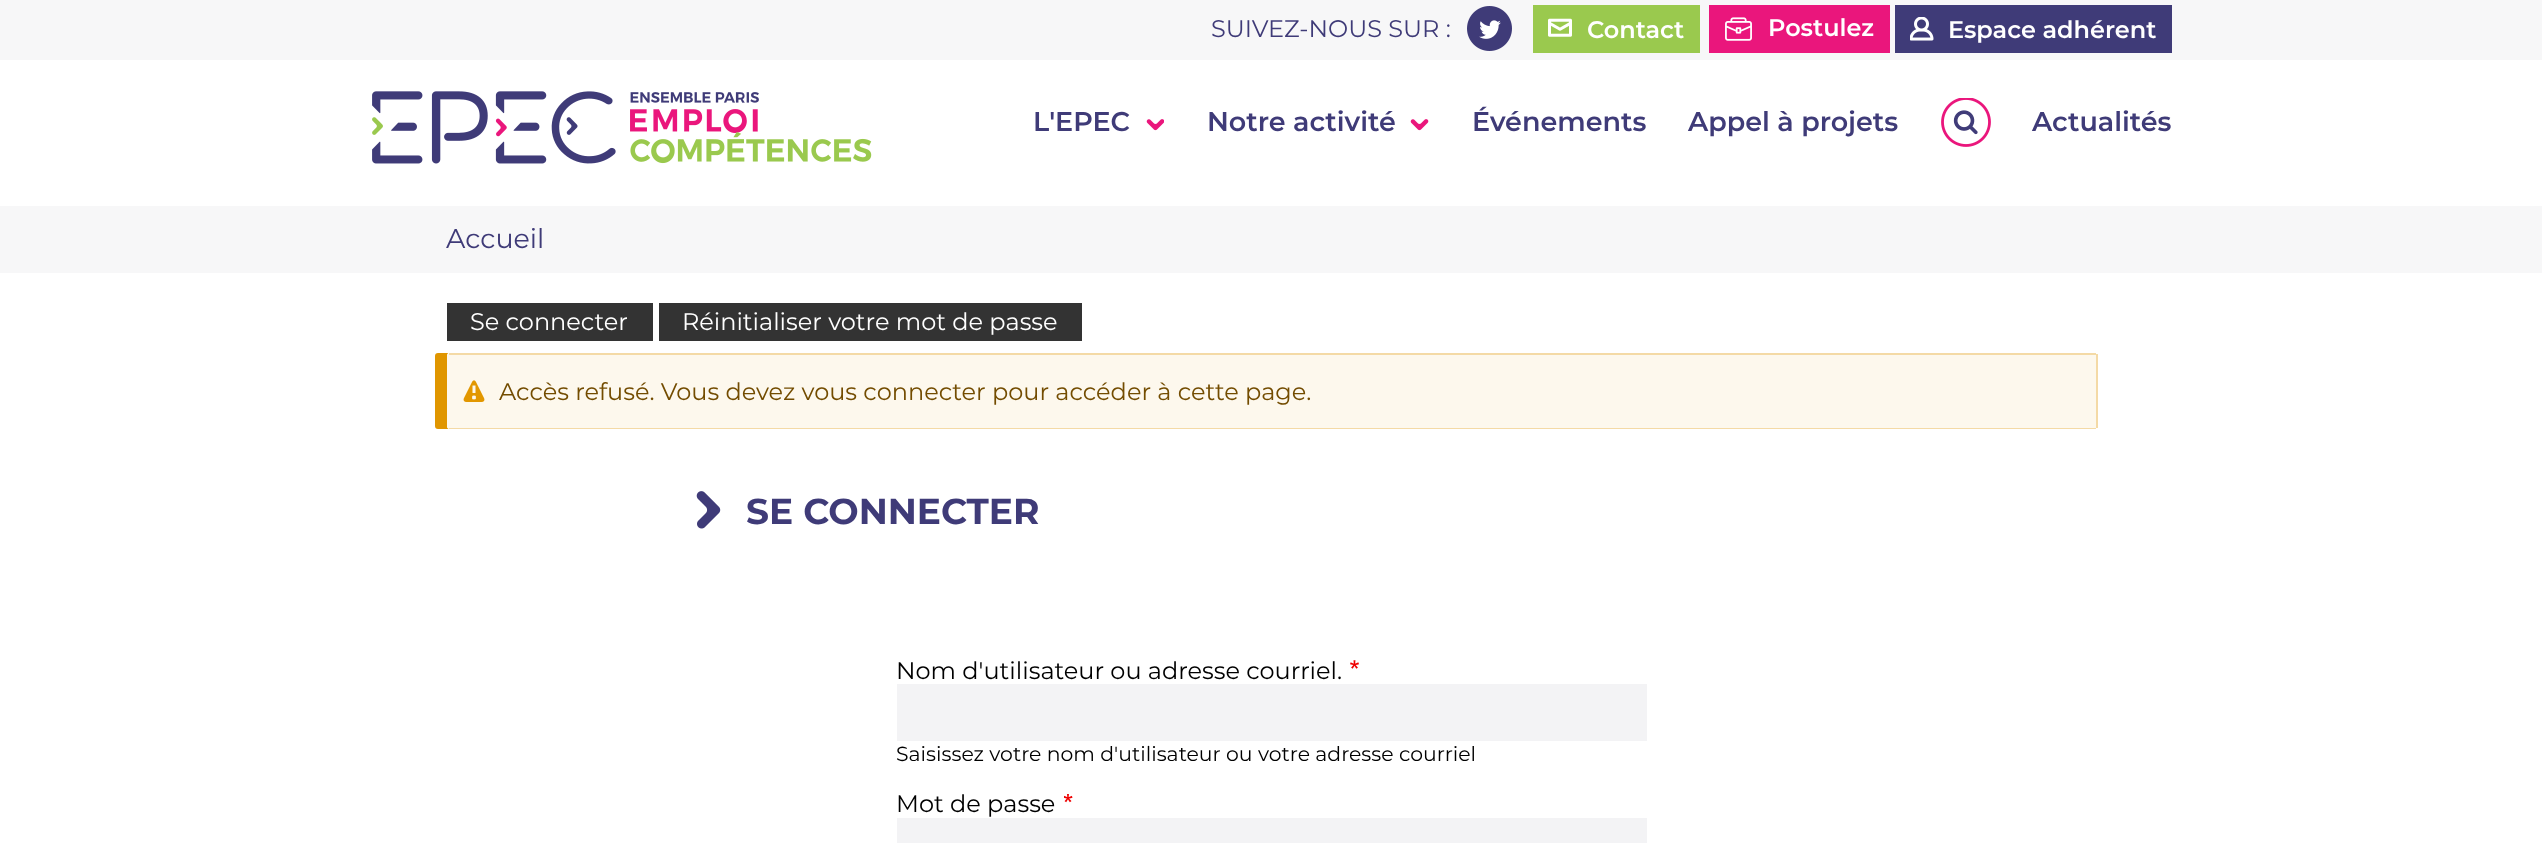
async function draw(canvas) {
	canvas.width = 2542;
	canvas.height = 843;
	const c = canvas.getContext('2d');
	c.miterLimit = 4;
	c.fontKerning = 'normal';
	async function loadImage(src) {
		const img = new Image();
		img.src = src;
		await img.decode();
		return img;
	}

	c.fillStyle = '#fff';
	c.fillRect(0, 0, 2542, 843);
	c.fillStyle = '#f7f7f8';
	c.fillRect(0, 0, 2542, 60);
	c.font = '24px Montserrat';
	c.fillStyle = '#3f3b78';
	c.fillText('SUIVEZ-NOUS SUR :', 1211, 37);
	c.drawImage(await loadImage('img1.png'), 1467, 6, 45, 45);
	c.fillStyle = '#9ac94e';
	c.fillRect(1533, 5, 167, 48);
	c.drawImage(await loadImage('img2.png'), 1548, 18, 24, 19);
	c.font = '600 24px Montserrat';
	c.fillStyle = '#fff';
	c.fillText('Contact', 1587, 38);
	c.fillStyle = '#ea167c';
	c.fillRect(1709, 5, 181, 48);
	c.drawImage(await loadImage('img3.png'), 1725, 17, 27, 24);
	c.fillStyle = '#fff';
	c.fillText('Postulez', 1768, 36);
	c.fillStyle = '#3f3b78';
	c.fillRect(1895, 5, 277, 48);
	c.drawImage(await loadImage('img4.png'), 1910, 17, 24, 24);
	c.fillStyle = '#fff';
	c.fillText('Espace adhérent', 1948, 38);
	c.drawImage(await loadImage('img5.png'), 372, 91, 500, 73);
	c.font = '600 27px Montserrat';
	c.fillStyle = '#3f3b78';
	c.fillText('L\'EPEC', 1033, 131);
	c.drawImage(await loadImage('img6.png'), 1146, 119, 18, 12);
	c.fillText('Notre activité', 1207, 131);
	c.drawImage(await loadImage('img7.png'), 1410, 119, 19, 12);
	c.fillText('Événements', 1472, 131);
	c.fillText('Appel à projets', 1688, 131);
	c.drawImage(await loadImage('img8.png'), 1941, 98, 50, 49);
	c.fillText('Actualités', 2032, 131);
	c.fillStyle = '#f7f7f8';
	c.fillRect(0, 206, 2542, 67);
	c.font = '27px Montserrat';
	c.fillStyle = '#3f3b78';
	c.fillText('Accueil', 446, 248);
	c.fillStyle = '#333';
	c.fillRect(447, 303, 206, 38);
	c.font = '24px Montserrat';
	c.fillStyle = '#fff';
	c.fillText('Se connecter', 470, 330);
	c.fillStyle = '#333';
	c.fillRect(659, 303, 423, 38);
	c.fillStyle = '#fff';
	c.fillText('Réinitialiser votre mot de passe', 682, 330);
	c.fillStyle = '#e09600';
	c.beginPath();
	c.moveTo(438, 353);
	c.bezierCurveTo(436, 353, 435, 354, 435, 356);
	c.lineTo(435, 426);
	c.bezierCurveTo(435, 428, 436, 429, 438, 429);
	c.lineTo(450, 429);
	c.bezierCurveTo(448, 429, 447, 428, 447, 426);
	c.lineTo(447, 356);
	c.bezierCurveTo(447, 354, 448, 354, 448, 353);
	c.closePath();
	c.fill();
	c.fillStyle = '#fdf8ed';
	c.beginPath();
	c.roundRect(447, 353, 1650, 76, 3);
	c.fill();
	c.drawImage(await loadImage('img9.png'), 463, 380, 22, 22);
	for (const [x, y, w, h, color] of [
		[449, 353, 1647, 2, '#f4daa6'],
		[2096, 354, 2, 74, '#f4daa6'],
		[449, 428, 1647, 1, '#f4daa6'],
	]) {
		c.fillStyle = color;
		c.fillRect(x, y, w, h);
	}
	c.fillStyle = '#734c00';
	c.fillText('Accès refusé. Vous devez vous connecter pour accéder à cette page.', 499, 400);
	c.drawImage(await loadImage('img10.png'), 696, 491, 25, 38);
	c.font = 'bold 36px Montserrat';
	c.fillStyle = '#3f3b78';
	c.fillText('SE CONNECTER', 746, 524);
	c.font = '24px Montserrat';
	c.fillStyle = '#000';
	c.fillText('Nom d\'utilisateur ou adresse courriel.', 896, 679);
	c.drawImage(await loadImage('img11.png'), 1350, 660, 9, 9);
	c.fillStyle = '#f3f3f5';
	c.fillRect(897, 684, 750, 57);
	c.font = '20.4px Montserrat';
	c.fillStyle = '#000';
	c.fillText('Saisissez votre nom d\'utilisateur ou votre adresse courriel', 896, 761);
	c.font = '24px Montserrat';
	c.fillText('Mot de passe', 896, 812);
	c.drawImage(await loadImage('img12.png'), 1064, 794, 9, 9);
	c.fillStyle = '#f3f3f5';
	c.fillRect(897, 818, 750, 25);
}

draw(document.querySelector('canvas'));
